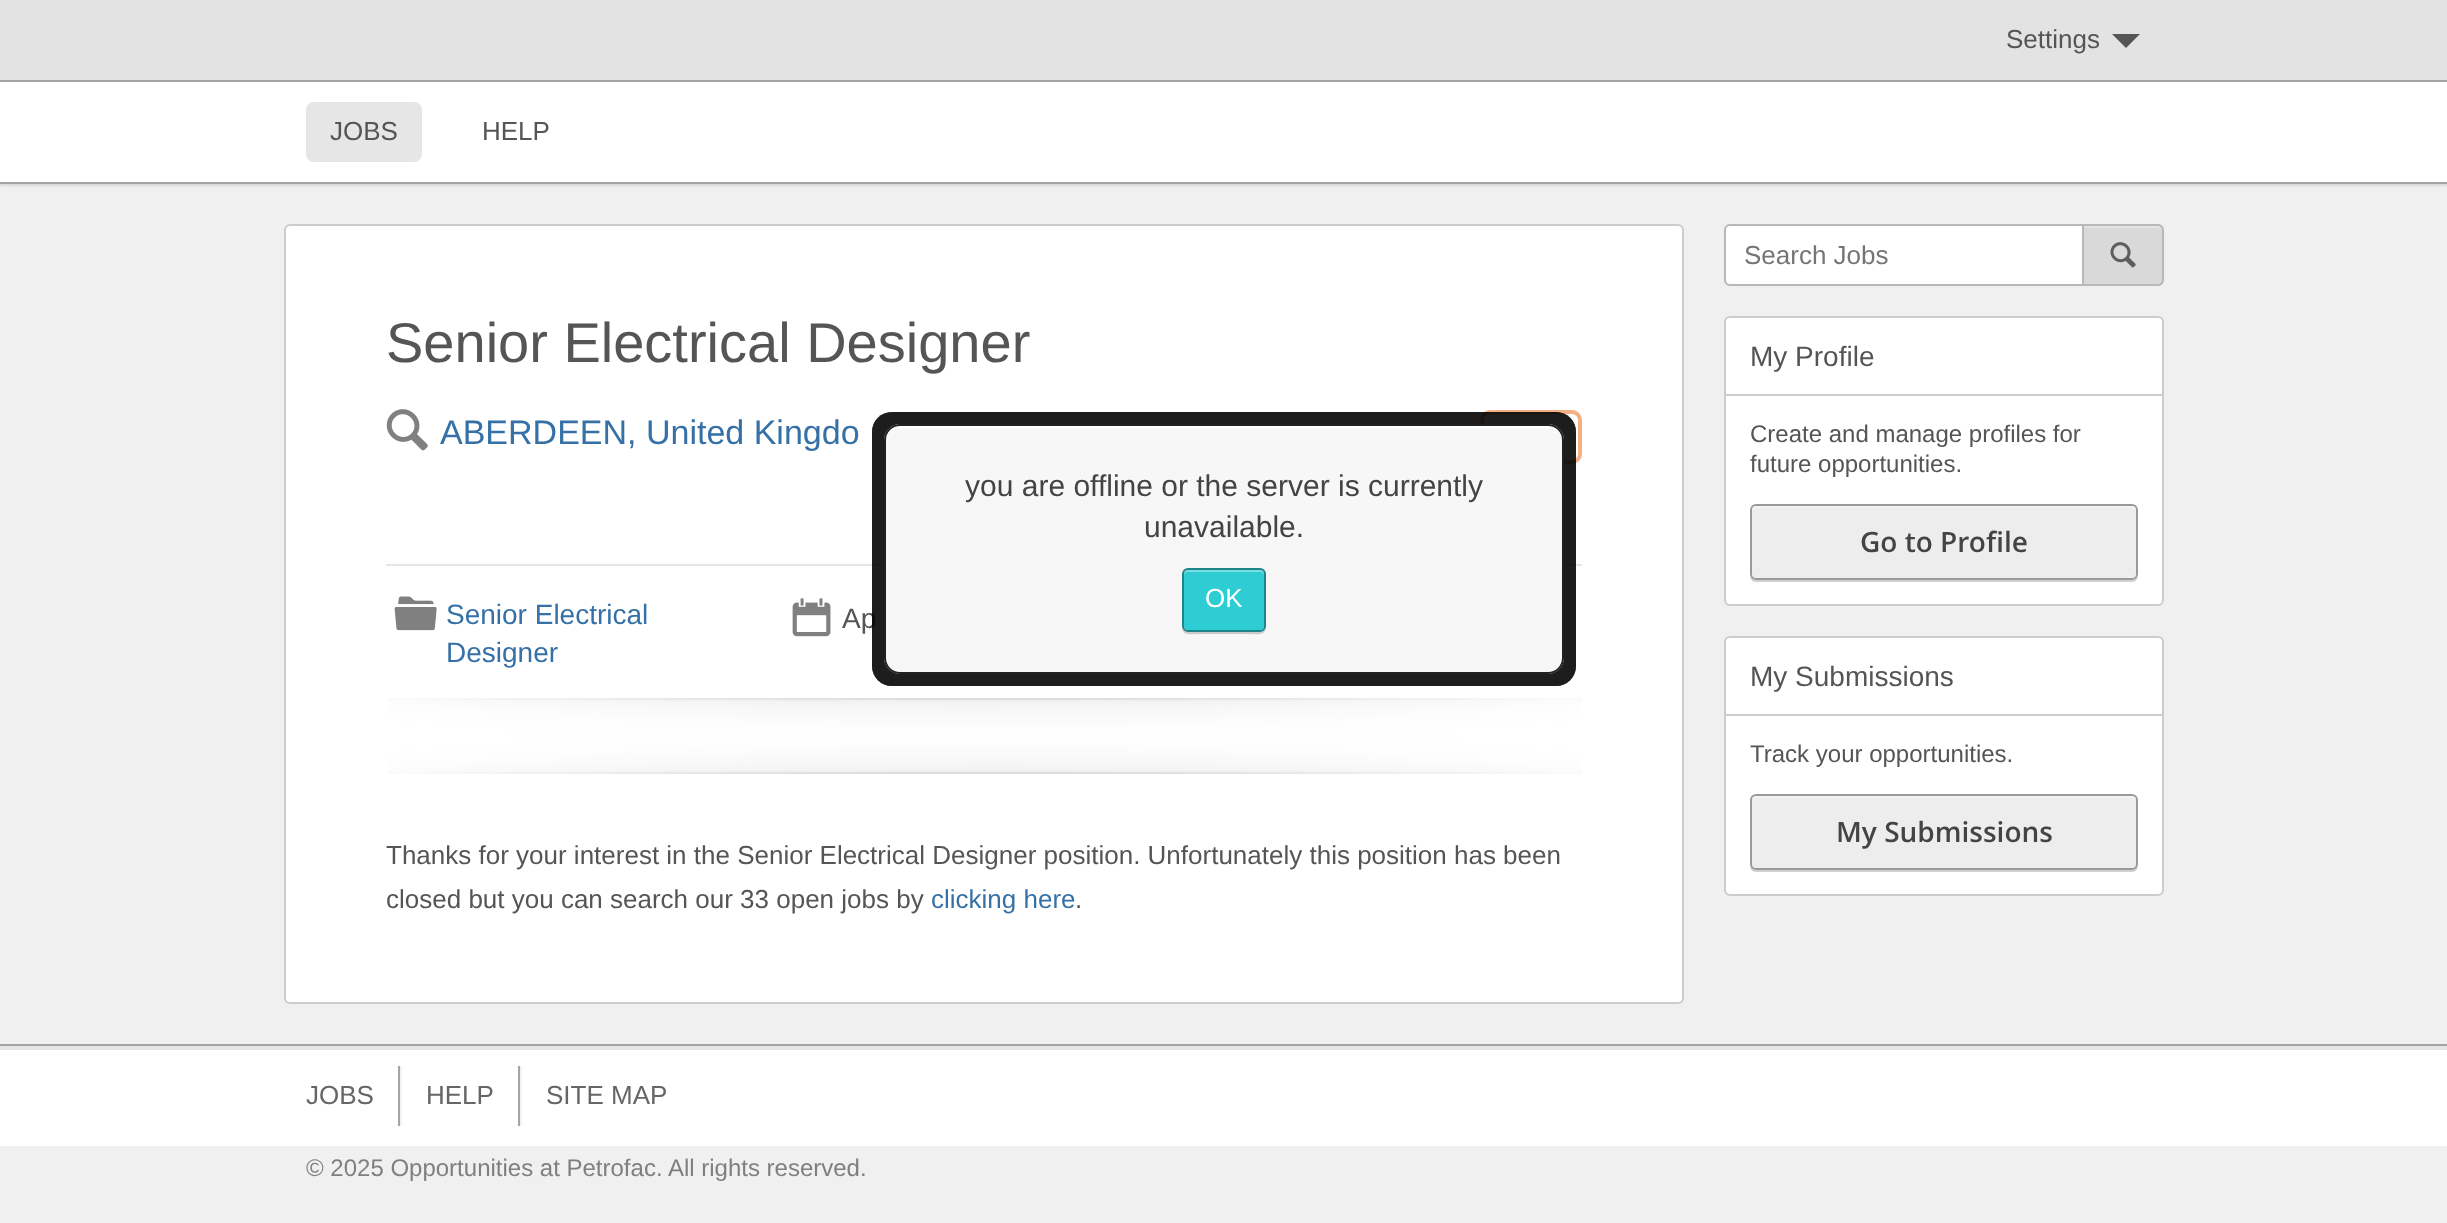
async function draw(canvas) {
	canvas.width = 2447;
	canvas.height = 1223;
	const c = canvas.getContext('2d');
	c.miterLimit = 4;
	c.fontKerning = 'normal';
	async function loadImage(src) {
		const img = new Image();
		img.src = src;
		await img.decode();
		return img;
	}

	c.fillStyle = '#f0f0f0';
	c.fillRect(0, 0, 2447, 1223);
	c.fillStyle = '#e3e3e3';
	c.fillRect(0, 0, 2447, 80);
	c.fillStyle = '#a3a3a3';
	c.fillRect(0, 80, 2447, 2);
	c.font = '26px Liberation Sans';
	c.fillStyle = '#555';
	c.fillText('Settings', 2006, 48);
	c.beginPath();
	c.moveTo(2112, 34);
	c.lineTo(2140, 34);
	c.lineTo(2126, 48);
	c.closePath();
	c.fill();
	c.fillStyle = '#0000001a';
	c.filter = 'blur(1px)';
	c.beginPath();
	c.rect(0, 84, 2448, 102);
	c.fill();
	c.filter = 'none';
	c.fillStyle = '#fff';
	c.fillRect(0, 82, 2447, 100);
	c.fillStyle = '#a3a3a3';
	c.fillRect(0, 182, 2447, 2);
	c.fillStyle = '#e6e6e6';
	c.beginPath();
	c.roundRect(306, 102, 116, 60, 8);
	c.fill();
	c.fillStyle = '#555';
	c.fillText('JOBS', 330, 140);
	c.fillText('HELP', 482, 140);
	c.fillStyle = '#fff';
	c.beginPath();
	c.roundRect(285, 225, 1398, 778, 5);
	c.fill();
	c.strokeStyle = '#ccc';
	c.lineWidth = 2;
	c.stroke();
	c.font = '56px Liberation Sans';
	c.fillStyle = '#555';
	c.fillText('Senior Electrical Designer', 386, 362);
	c.drawImage(await loadImage('img1.png'), 386, 409, 42, 42);
	c.font = '34px Liberation Sans';
	c.fillStyle = '#3571a6';
	c.fillText('ABERDEEN, United Kingdo', 440, 444);
	c.beginPath();
	c.roundRect(1482, 412, 98, 50, 8);
	c.strokeStyle = '#f2b083';
	c.lineWidth = 4;
	c.stroke();
	c.fillStyle = '#e6e6e6';
	c.fillRect(386, 564, 1196, 2);
	c.drawImage(await loadImage('img2.png'), 394, 596, 43, 35);
	c.font = '28px Liberation Sans';
	c.fillStyle = '#3571a6';
	c.fillText('Senior Electrical', 446, 624);
	c.fillText('Designer', 446, 662);
	c.drawImage(await loadImage('img3.png'), 792, 598, 39, 39);
	c.fillStyle = '#555';
	c.fillText('Ap', 842, 628);
	c.drawImage(await loadImage('img4.png'), 388, 698, 1194, 76);
	c.font = '26px Liberation Sans';
	c.fillText('Thanks for your interest in the Senior Electrical Designer position. Unfortunately this position has been', 386, 864);
	c.fillText('closed but you can search our 33 open jobs by', 386, 908);
	c.fillStyle = '#3571a6';
	c.fillText('clicking here', 931, 908);
	c.fillStyle = '#555';
	c.fillText('.', 1075, 908);
	c.fillStyle = '#fff';
	c.beginPath();
	c.roundRect(1725, 225, 358, 60, [5, 0, 0, 5]);
	c.fill();
	c.strokeStyle = '#b8b8b8';
	c.lineWidth = 2;
	c.stroke();
	c.fillStyle = '#757575';
	c.fillText('Search Jobs', 1744, 264);
	c.fillStyle = '#d9d9d9';
	c.beginPath();
	c.roundRect(2084, 224, 80, 62, [0, 6, 6, 0]);
	c.fill();
	c.fillStyle = '#e4e4e4';
	c.beginPath();
	c.moveTo(2084, 228);
	c.lineTo(2158, 228);
	c.bezierCurveTo(2160, 228, 2162, 230, 2162, 232);
	c.lineTo(2162, 230);
	c.bezierCurveTo(2162, 228, 2160, 226, 2158, 226);
	c.lineTo(2084, 226);
	c.closePath();
	c.fill();
	c.fillStyle = '#b8b8b8';
	c.beginPath();
	c.moveTo(2084, 224);
	c.lineTo(2158, 224);
	c.bezierCurveTo(2161, 224, 2164, 227, 2164, 230);
	c.lineTo(2164, 280);
	c.bezierCurveTo(2164, 283, 2161, 286, 2158, 286);
	c.lineTo(2084, 286);
	c.closePath();
	c.moveTo(2084, 226);
	c.lineTo(2158, 226);
	c.bezierCurveTo(2160, 226, 2162, 228, 2162, 230);
	c.lineTo(2162, 280);
	c.bezierCurveTo(2162, 282, 2160, 284, 2158, 284);
	c.lineTo(2084, 284);
	c.closePath();
	c.fill('evenodd');
	c.drawImage(await loadImage('img5.png'), 2110, 242, 26, 26);
	c.fillStyle = '#fff';
	c.beginPath();
	c.roundRect(1725, 317, 438, 288, 5);
	c.fill();
	c.strokeStyle = '#ccc';
	c.stroke();
	c.fillStyle = '#ccc';
	c.fillRect(1726, 394, 436, 2);
	c.font = '28px Liberation Sans';
	c.fillStyle = '#555';
	c.fillText('My Profile', 1750, 366);
	c.font = '24px Liberation Sans';
	c.fillText('Create and manage profiles for', 1750, 442);
	c.fillText('future opportunities.', 1750, 472);
	c.fillStyle = '#d1d1d1';
	c.beginPath();
	c.moveTo(1750, 574);
	c.bezierCurveTo(1750, 578, 1751, 582, 1756, 582);
	c.lineTo(2132, 582);
	c.bezierCurveTo(2137, 582, 2138, 578, 2138, 574);
	c.bezierCurveTo(2138, 577, 2135, 580, 2132, 580);
	c.lineTo(1756, 580);
	c.bezierCurveTo(1753, 580, 1750, 577, 1750, 574);
	c.closePath();
	c.fill();
	c.fillStyle = '#ededed';
	c.beginPath();
	c.roundRect(1752, 506, 384, 72, 4);
	c.fill();
	c.fillStyle = '#ffffff59';
	c.beginPath();
	c.moveTo(1756, 508);
	c.lineTo(2132, 508);
	c.bezierCurveTo(2134, 508, 2136, 510, 2136, 512);
	c.lineTo(2136, 510);
	c.bezierCurveTo(2136, 508, 2134, 506, 2132, 506);
	c.lineTo(1756, 506);
	c.bezierCurveTo(1754, 506, 1752, 508, 1752, 510);
	c.lineTo(1752, 512);
	c.bezierCurveTo(1752, 510, 1754, 508, 1756, 508);
	c.closePath();
	c.fill();
	c.beginPath();
	c.roundRect(1751, 505, 386, 74, 5);
	c.strokeStyle = '#9a9a9a';
	c.stroke();
	c.font = '600 28px Open Sans';
	c.fillStyle = '#444';
	c.fillText('Go to Profile', 1860, 552);
	c.fillStyle = '#fff';
	c.beginPath();
	c.roundRect(1725, 637, 438, 258, 5);
	c.fill();
	c.strokeStyle = '#ccc';
	c.stroke();
	c.fillStyle = '#ccc';
	c.fillRect(1726, 714, 436, 2);
	c.font = '28px Liberation Sans';
	c.fillStyle = '#555';
	c.fillText('My Submissions', 1750, 686);
	c.font = '24px Liberation Sans';
	c.fillText('Track your opportunities.', 1750, 762);
	c.fillStyle = '#d1d1d1';
	c.beginPath();
	c.moveTo(1750, 864);
	c.bezierCurveTo(1750, 868, 1751, 872, 1756, 872);
	c.lineTo(2132, 872);
	c.bezierCurveTo(2137, 872, 2138, 868, 2138, 864);
	c.bezierCurveTo(2138, 867, 2135, 870, 2132, 870);
	c.lineTo(1756, 870);
	c.bezierCurveTo(1753, 870, 1750, 867, 1750, 864);
	c.closePath();
	c.fill();
	c.fillStyle = '#ededed';
	c.beginPath();
	c.roundRect(1752, 796, 384, 72, 4);
	c.fill();
	c.fillStyle = '#ffffff59';
	c.beginPath();
	c.moveTo(1756, 798);
	c.lineTo(2132, 798);
	c.bezierCurveTo(2134, 798, 2136, 800, 2136, 802);
	c.lineTo(2136, 800);
	c.bezierCurveTo(2136, 798, 2134, 796, 2132, 796);
	c.lineTo(1756, 796);
	c.bezierCurveTo(1754, 796, 1752, 798, 1752, 800);
	c.lineTo(1752, 802);
	c.bezierCurveTo(1752, 800, 1754, 798, 1756, 798);
	c.closePath();
	c.fill();
	c.beginPath();
	c.roundRect(1751, 795, 386, 74, 5);
	c.strokeStyle = '#9a9a9a';
	c.stroke();
	c.font = '600 28px Open Sans';
	c.fillStyle = '#444';
	c.fillText('My Submissions', 1836, 842);
	c.fillStyle = '#00000059';
	c.beginPath();
	c.roundRect(872, 412, 704, 274, 20);
	c.fill();
	c.beginPath();
	c.roundRect(885, 425, 678, 248, 15);
	c.strokeStyle = '#202020';
	c.stroke();
	c.beginPath();
	c.roundRect(872, 412, 704, 274, 20);
	c.fill();
	c.beginPath();
	c.roundRect(885, 425, 678, 248, 15);
	c.stroke();
	c.beginPath();
	c.roundRect(872, 412, 704, 274, 20);
	c.fill();
	c.beginPath();
	c.roundRect(885, 425, 678, 248, 15);
	c.stroke();
	c.beginPath();
	c.roundRect(872, 412, 704, 274, 20);
	c.fill();
	c.beginPath();
	c.roundRect(885, 425, 678, 248, 15);
	c.stroke();
	c.beginPath();
	c.roundRect(872, 412, 704, 274, 20);
	c.fill();
	c.fillStyle = '#f7f7f7';
	c.beginPath();
	c.roundRect(884, 424, 680, 250, 16);
	c.fill();
	c.fillStyle = '#fff';
	c.beginPath();
	c.moveTo(900, 428);
	c.lineTo(1548, 428);
	c.bezierCurveTo(1556, 428, 1562, 434, 1562, 442);
	c.bezierCurveTo(1562, 434, 1557, 426, 1548, 426);
	c.lineTo(900, 426);
	c.bezierCurveTo(891, 426, 886, 434, 886, 442);
	c.bezierCurveTo(886, 434, 892, 428, 900, 428);
	c.closePath();
	c.fill();
	c.beginPath();
	c.roundRect(885, 425, 678, 248, 15);
	c.stroke();
	c.font = '30px Liberation Sans';
	c.fillStyle = '#444';
	c.fillText('you are offline or the server is currently', 965, 496);
	c.fillText('unavailable.', 1144, 537);
	c.fillStyle = '#cbcbcb';
	c.beginPath();
	c.moveTo(1182, 626);
	c.bezierCurveTo(1182, 637, 1191, 634, 1200, 634);
	c.lineTo(1248, 634);
	c.bezierCurveTo(1257, 634, 1266, 637, 1266, 626);
	c.bezierCurveTo(1266, 629, 1263, 632, 1260, 632);
	c.lineTo(1188, 632);
	c.bezierCurveTo(1185, 632, 1182, 629, 1182, 626);
	c.closePath();
	c.fill();
	c.fillStyle = '#2eccd3';
	c.beginPath();
	c.roundRect(1184, 570, 80, 60, 4);
	c.fill();
	c.fillStyle = '#ffffff59';
	c.beginPath();
	c.moveTo(1188, 572);
	c.lineTo(1260, 572);
	c.bezierCurveTo(1262, 572, 1264, 574, 1264, 576);
	c.bezierCurveTo(1264, 567, 1256, 570, 1248, 570);
	c.lineTo(1200, 570);
	c.bezierCurveTo(1192, 570, 1184, 567, 1184, 576);
	c.bezierCurveTo(1184, 574, 1186, 572, 1188, 572);
	c.closePath();
	c.fill();
	c.beginPath();
	c.roundRect(1183, 569, 82, 62, 5);
	c.strokeStyle = '#1d8589';
	c.stroke();
	c.font = '26px Liberation Sans';
	c.fillStyle = '#feffff';
	c.fillText('OK', 1205, 607);
	for (const [x, y, w, h, color] of [
		[0, 1050, 2447, 96, '#fff'],
		[0, 1046, 2447, 4, '#e6e6e6'],
		[0, 1044, 2447, 2, '#a3a3a3'],
	]) {
		c.fillStyle = color;
		c.fillRect(x, y, w, h);
	}
	c.fillStyle = '#666';
	c.fillText('JOBS', 306, 1104);
	c.fillStyle = '#a5a5a5';
	c.fillRect(398, 1066, 2, 60);
	c.fillStyle = '#f4f4f4';
	c.fillRect(400, 1066, 2, 60);
	c.fillStyle = '#666';
	c.fillText('HELP', 426, 1104);
	c.fillStyle = '#a5a5a5';
	c.fillRect(518, 1066, 2, 60);
	c.fillStyle = '#f4f4f4';
	c.fillRect(520, 1066, 2, 60);
	c.fillStyle = '#666';
	c.fillText('SITE MAP', 546, 1104);
	c.font = '24px Liberation Sans';
	c.fillStyle = '#7f7f7f';
	c.fillText('© 2025 Opportunities at Petrofac. All rights reserved.', 306, 1176);
}

draw(document.querySelector('canvas'));
